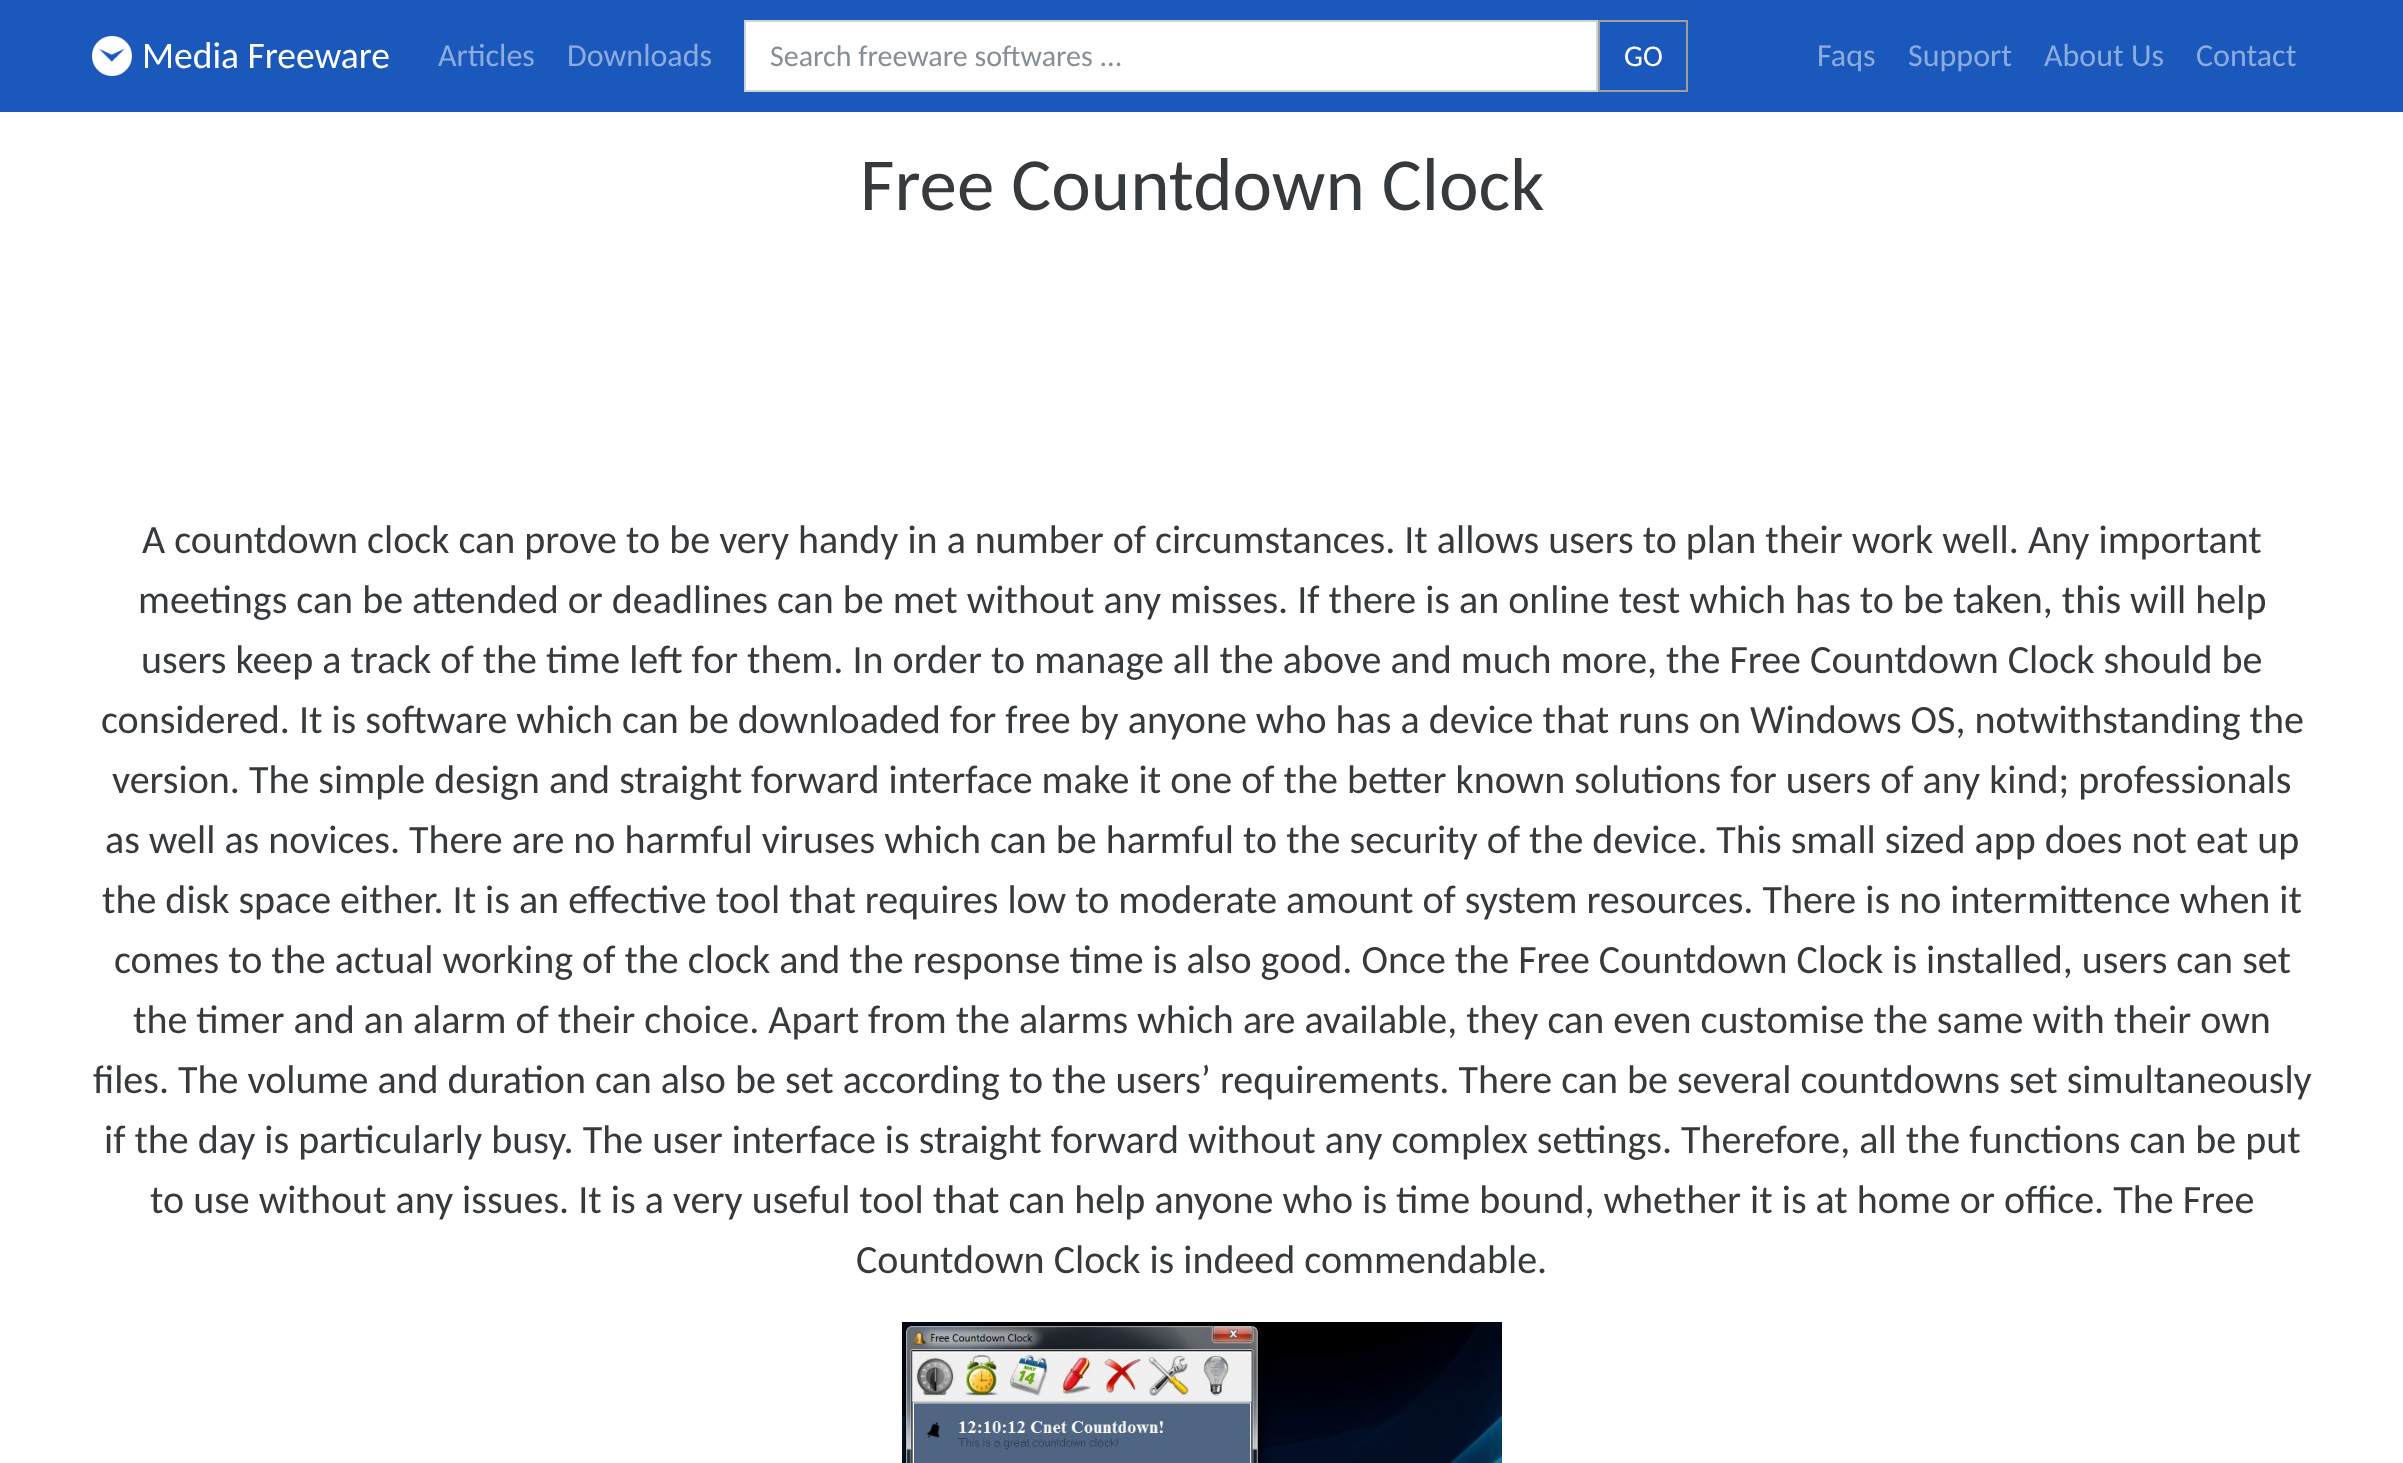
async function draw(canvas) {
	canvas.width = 2403;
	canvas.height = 1463;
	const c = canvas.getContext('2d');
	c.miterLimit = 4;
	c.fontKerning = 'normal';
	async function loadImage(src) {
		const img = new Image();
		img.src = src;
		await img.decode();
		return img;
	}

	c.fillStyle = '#fff';
	c.fillRect(0, 0, 2403, 1463);
	c.fillStyle = '#1b58bc';
	c.fillRect(0, 0, 2403, 112);
	c.drawImage(await loadImage('img1.png'), 92, 36, 40, 40);
	c.font = '37.5px Carlito';
	c.fillStyle = '#fff';
	c.fillText('Media Freeware', 142, 68);
	c.font = '32px Carlito';
	c.fillStyle = '#8dacde';
	c.fillText('Articles', 438, 66);
	c.fillText('Downloads', 567, 66);
	c.fillStyle = '#fff';
	c.beginPath();
	c.rect(745, 21, 852, 70);
	c.fill();
	c.strokeStyle = '#ced4da';
	c.lineWidth = 2;
	c.stroke();
	c.font = '30px Carlito';
	c.fillStyle = '#868e96';
	c.fillText('Search freeware softwares ...', 770, 66);
	c.strokeStyle = '#9e9e9e';
	c.strokeRect(1599, 21, 88, 70);
	c.fillStyle = '#fff';
	c.fillText('GO', 1624, 66);
	c.font = '32px Carlito';
	c.fillStyle = '#8dacde';
	for (const [text, x, y] of [
		['Faqs', 1817, 66],
		['Support', 1908, 66],
		['About Us', 2044, 66],
		['Contact', 2196, 66],
	]) {
		c.fillText(text, x, y);
	}
	c.font = '75px Carlito';
	c.fillStyle = '#373a3c';
	c.fillText('Free Countdown Clock', 860, 210);
	c.font = '40px Carlito';
	for (const [text, x, y] of [
		['A countdown clock can prove to be very handy in a number of circumstances. It allows users to plan their work well. Any important', 142, 553],
		['meetings can be attended or deadlines can be met without any misses. If there is an online test which has to be taken, this will help', 138, 613],
		['users keep a track of the time left for them. In order to manage all the above and much more, the Free Countdown Clock should be', 141, 673],
		['considered. It is software which can be downloaded for free by anyone who has a device that runs on Windows OS, notwithstanding the', 101, 733],
		['version. The simple design and straight forward interface make it one of the better known solutions for users of any kind; professionals', 112, 793],
		['as well as novices. There are no harmful viruses which can be harmful to the security of the device. This small sized app does not eat up', 105, 853],
		['the disk space either. It is an effective tool that requires low to moderate amount of system resources. There is no intermittence when it', 102, 913],
		['comes to the actual working of the clock and the response time is also good. Once the Free Countdown Clock is installed, users can set', 114, 973],
		['the timer and an alarm of their choice. Apart from the alarms which are available, they can even customise the same with their own', 133, 1033],
		['files. The volume and duration can also be set according to the users’ requirements. There can be several countdowns set simultaneously', 93, 1093],
		['if the day is particularly busy. The user interface is straight forward without any complex settings. Therefore, all the functions can be put', 104, 1153],
		['to use without any issues. It is a very useful tool that can help anyone who is time bound, whether it is at home or office. The Free', 150, 1213],
		['Countdown Clock is indeed commendable.', 856, 1273],
	]) {
		c.fillText(text, x, y);
	}
	c.drawImage(await loadImage('img2.png'), 902, 1322, 600, 141);
}

draw(document.querySelector('canvas'));
